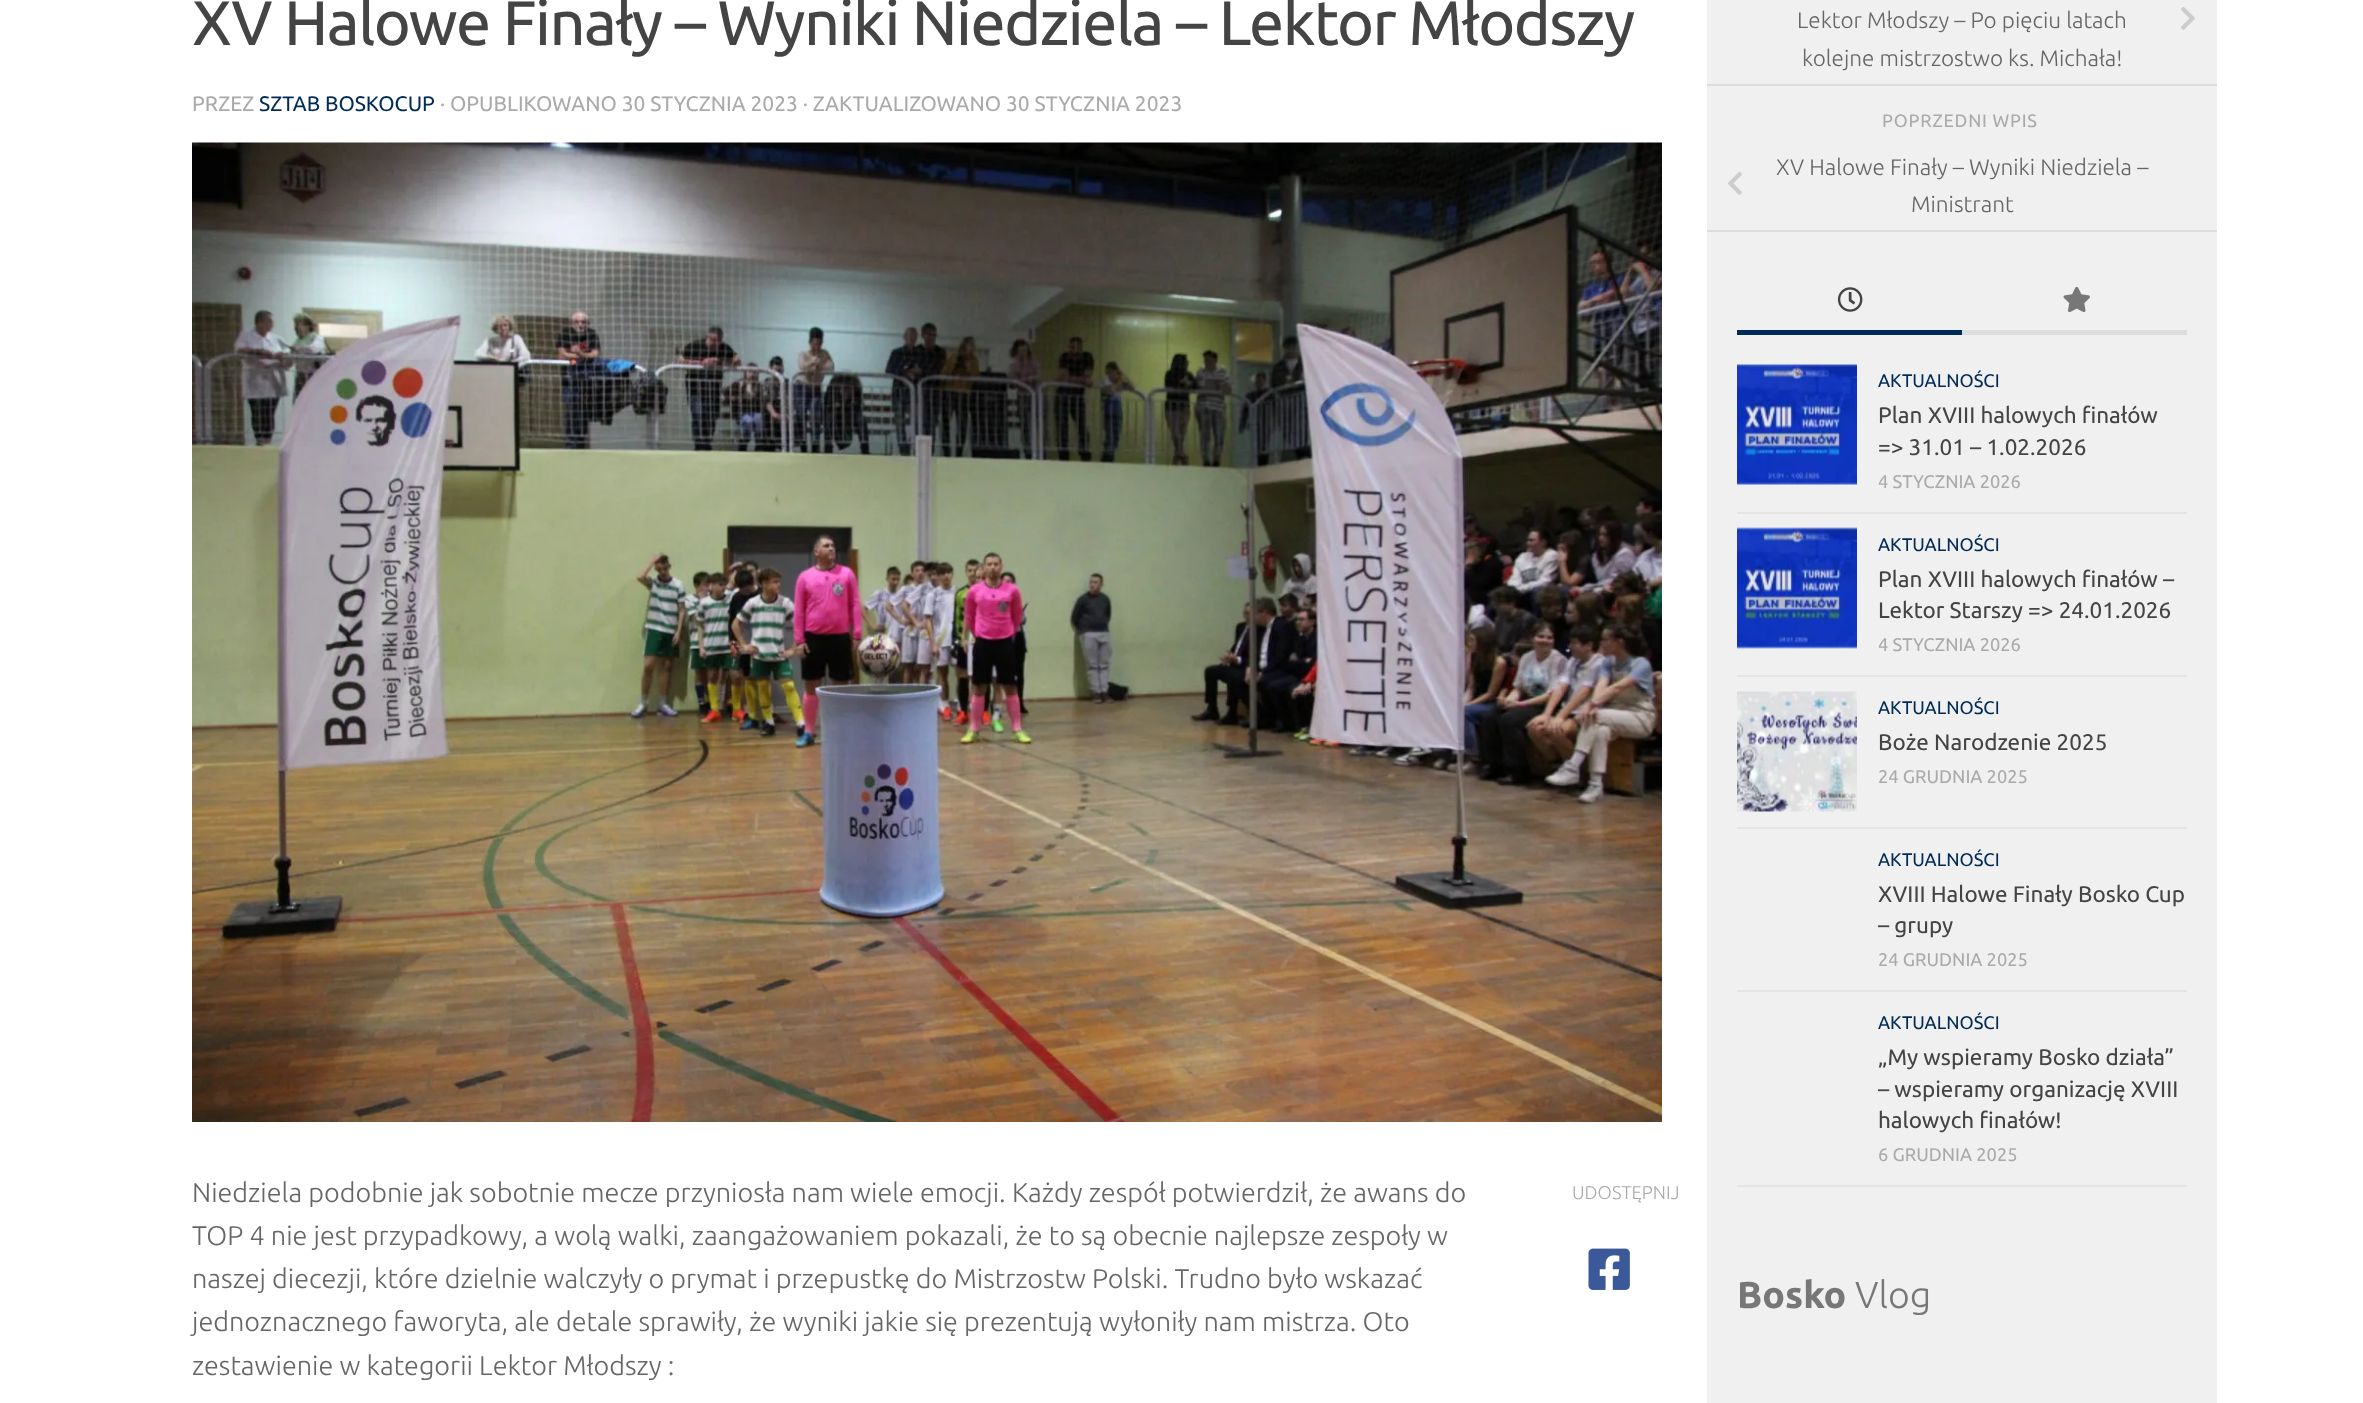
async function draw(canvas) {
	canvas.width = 2363;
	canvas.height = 1403;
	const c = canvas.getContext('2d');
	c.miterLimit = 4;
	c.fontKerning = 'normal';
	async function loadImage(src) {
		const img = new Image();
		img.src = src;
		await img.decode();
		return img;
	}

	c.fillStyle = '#fff';
	c.fillRect(0, 0, 2363, 1403);
	c.letterSpacing = '-1.5px';
	c.font = '62.9px Ubuntu';
	c.fillStyle = '#444';
	c.fillText('XV Halowe Finały – Wyniki Niedziela – Lektor Młodszy', 192, 45);
	c.letterSpacing = '0px';
	c.font = '21px Ubuntu';
	c.fillStyle = '#aaa';
	c.fillText('PRZEZ', 192, 111);
	c.fillStyle = '#002b56';
	c.fillText('SZTAB BOSKOCUP', 259, 111);
	c.fillStyle = '#aaa';
	c.fillText('· OPUBLIKOWANO 30 STYCZNIA 2023 · ZAKTUALIZOWANO 30 STYCZNIA 2023', 440, 111);
	c.drawImage(await loadImage('img1.png'), 192, 142, 1470, 980);
	c.font = '300 27px Ubuntu';
	c.fillStyle = '#666';
	for (const [text, x, y] of [
		['Niedziela podobnie jak sobotnie mecze przyniosła nam wiele emocji. Każdy zespół potwierdził, że awans do', 192, 1202],
		['TOP 4 nie jest przypadkowy, a wolą walki, zaangażowaniem pokazali, że to są obecnie najlepsze zespoły w', 192, 1245],
		['naszej diecezji, które dzielnie walczyły o prymat i przepustkę do Mistrzostw Polski. Trudno było wskazać', 192, 1288],
		['jednoznacznego faworyta, ale detale sprawiły, że wyniki jakie się prezentują wyłoniły nam mistrza. Oto', 192, 1331],
		['zestawienie w kategorii Lektor Młodszy :', 192, 1375],
	]) {
		c.fillText(text, x, y);
	}
	c.font = '300 18.5px Ubuntu';
	c.fillStyle = '#aaa';
	c.fillText('UDOSTĘPNIJ', 1572, 1199);
	c.drawImage(await loadImage('img2.png'), 1588, 1248, 42, 42);
	c.fillStyle = '#f0f0f0';
	c.fillRect(1707, 0, 510, 1403);
	c.fillStyle = '#ddd';
	c.fillRect(1707, 84, 510, 2);
	c.font = '300 22.5px Ubuntu';
	c.fillStyle = '#666';
	c.fillText('Lektor Młodszy – Po pięciu latach', 1797, 28);
	c.drawImage(await loadImage('img3.png'), 2181, 7, 14, 23);
	c.fillText('kolejne mistrzostwo ks. Michała!', 1802, 66);
	c.letterSpacing = '0.75px';
	c.font = '18px Ubuntu';
	c.fillStyle = '#aaa';
	c.fillText('POPRZEDNI WPIS', 1882, 127);
	c.fillStyle = '#ddd';
	c.fillRect(1707, 230, 510, 2);
	c.letterSpacing = '0px';
	c.font = '300 22.5px Ubuntu';
	c.fillStyle = '#666';
	c.fillText('XV Halowe Finały – Wyniki Niedziela –', 1776, 175);
	c.drawImage(await loadImage('img4.png'), 1728, 172, 14, 23);
	c.fillText('Ministrant', 1911, 212);
	c.fillStyle = '#ddd';
	c.fillRect(1962, 330, 225, 5);
	c.fillStyle = '#002b56';
	c.fillRect(1737, 330, 225, 5);
	c.drawImage(await loadImage('img5.png'), 1837, 287, 26, 25);
	c.drawImage(await loadImage('img6.png'), 2063, 286, 27, 27);
	c.fillStyle = '#e4e4e4';
	c.fillRect(1737, 512, 450, 2);
	c.drawImage(await loadImage('img7.png'), 1737, 364, 120, 121);
	c.font = '18.25px Ubuntu';
	c.fillStyle = '#002b56';
	c.fillText('AKTUALNOŚCI', 1878, 387);
	c.font = '22.5px Ubuntu';
	c.fillStyle = '#444';
	c.fillText('Plan XVIII halowych finałów', 1878, 423);
	c.fillText('=> 31.01 – 1.02.2026', 1878, 455);
	c.font = '18.25px Ubuntu';
	c.fillStyle = '#aaa';
	c.fillText('4 STYCZNIA 2026', 1878, 488);
	c.fillStyle = '#e4e4e4';
	c.fillRect(1737, 675, 450, 2);
	c.drawImage(await loadImage('img8.png'), 1737, 527, 120, 122);
	c.fillStyle = '#002b56';
	c.fillText('AKTUALNOŚCI', 1878, 551);
	c.font = '22.5px Ubuntu';
	c.fillStyle = '#444';
	c.fillText('Plan XVIII halowych finałów –', 1878, 587);
	c.fillText('Lektor Starszy => 24.01.2026', 1878, 618);
	c.font = '18.25px Ubuntu';
	c.fillStyle = '#aaa';
	c.fillText('4 STYCZNIA 2026', 1878, 651);
	c.fillStyle = '#e4e4e4';
	c.fillRect(1737, 827, 450, 2);
	c.drawImage(await loadImage('img9.png'), 1737, 691, 120, 121);
	c.fillStyle = '#002b56';
	c.fillText('AKTUALNOŚCI', 1878, 714);
	c.font = '22.5px Ubuntu';
	c.fillStyle = '#444';
	c.fillText('Boże Narodzenie 2025', 1878, 750);
	c.font = '18.25px Ubuntu';
	c.fillStyle = '#aaa';
	c.fillText('24 GRUDNIA 2025', 1878, 783);
	c.fillStyle = '#e4e4e4';
	c.fillRect(1737, 990, 450, 2);
	c.fillStyle = '#002b56';
	c.fillText('AKTUALNOŚCI', 1878, 866);
	c.font = '22.5px Ubuntu';
	c.fillStyle = '#444';
	c.fillText('XVIII Halowe Finały Bosko Cup', 1878, 902);
	c.fillText('– grupy', 1878, 933);
	c.font = '18.25px Ubuntu';
	c.fillStyle = '#aaa';
	c.fillText('24 GRUDNIA 2025', 1878, 966);
	c.fillStyle = '#e4e4e4';
	c.fillRect(1737, 1185, 450, 2);
	c.fillStyle = '#002b56';
	c.fillText('AKTUALNOŚCI', 1878, 1029);
	c.font = '22.5px Ubuntu';
	c.fillStyle = '#444';
	for (const [text, x, y] of [
		['„My wspieramy Bosko działa”', 1878, 1065],
		['– wspieramy organizację XVIII', 1878, 1097],
		['halowych finałów!', 1878, 1128],
	]) {
		c.fillText(text, x, y);
	}
	c.font = '18.25px Ubuntu';
	c.fillStyle = '#aaa';
	c.fillText('6 GRUDNIA 2025', 1878, 1161);
	c.font = 'bold 37.5px Ubuntu';
	c.fillStyle = '#777';
	c.fillText('Bosko', 1737, 1308);
	c.font = '300 37.5px Ubuntu';
	c.fillText('Vlog', 1855, 1308);
}

draw(document.querySelector('canvas'));
